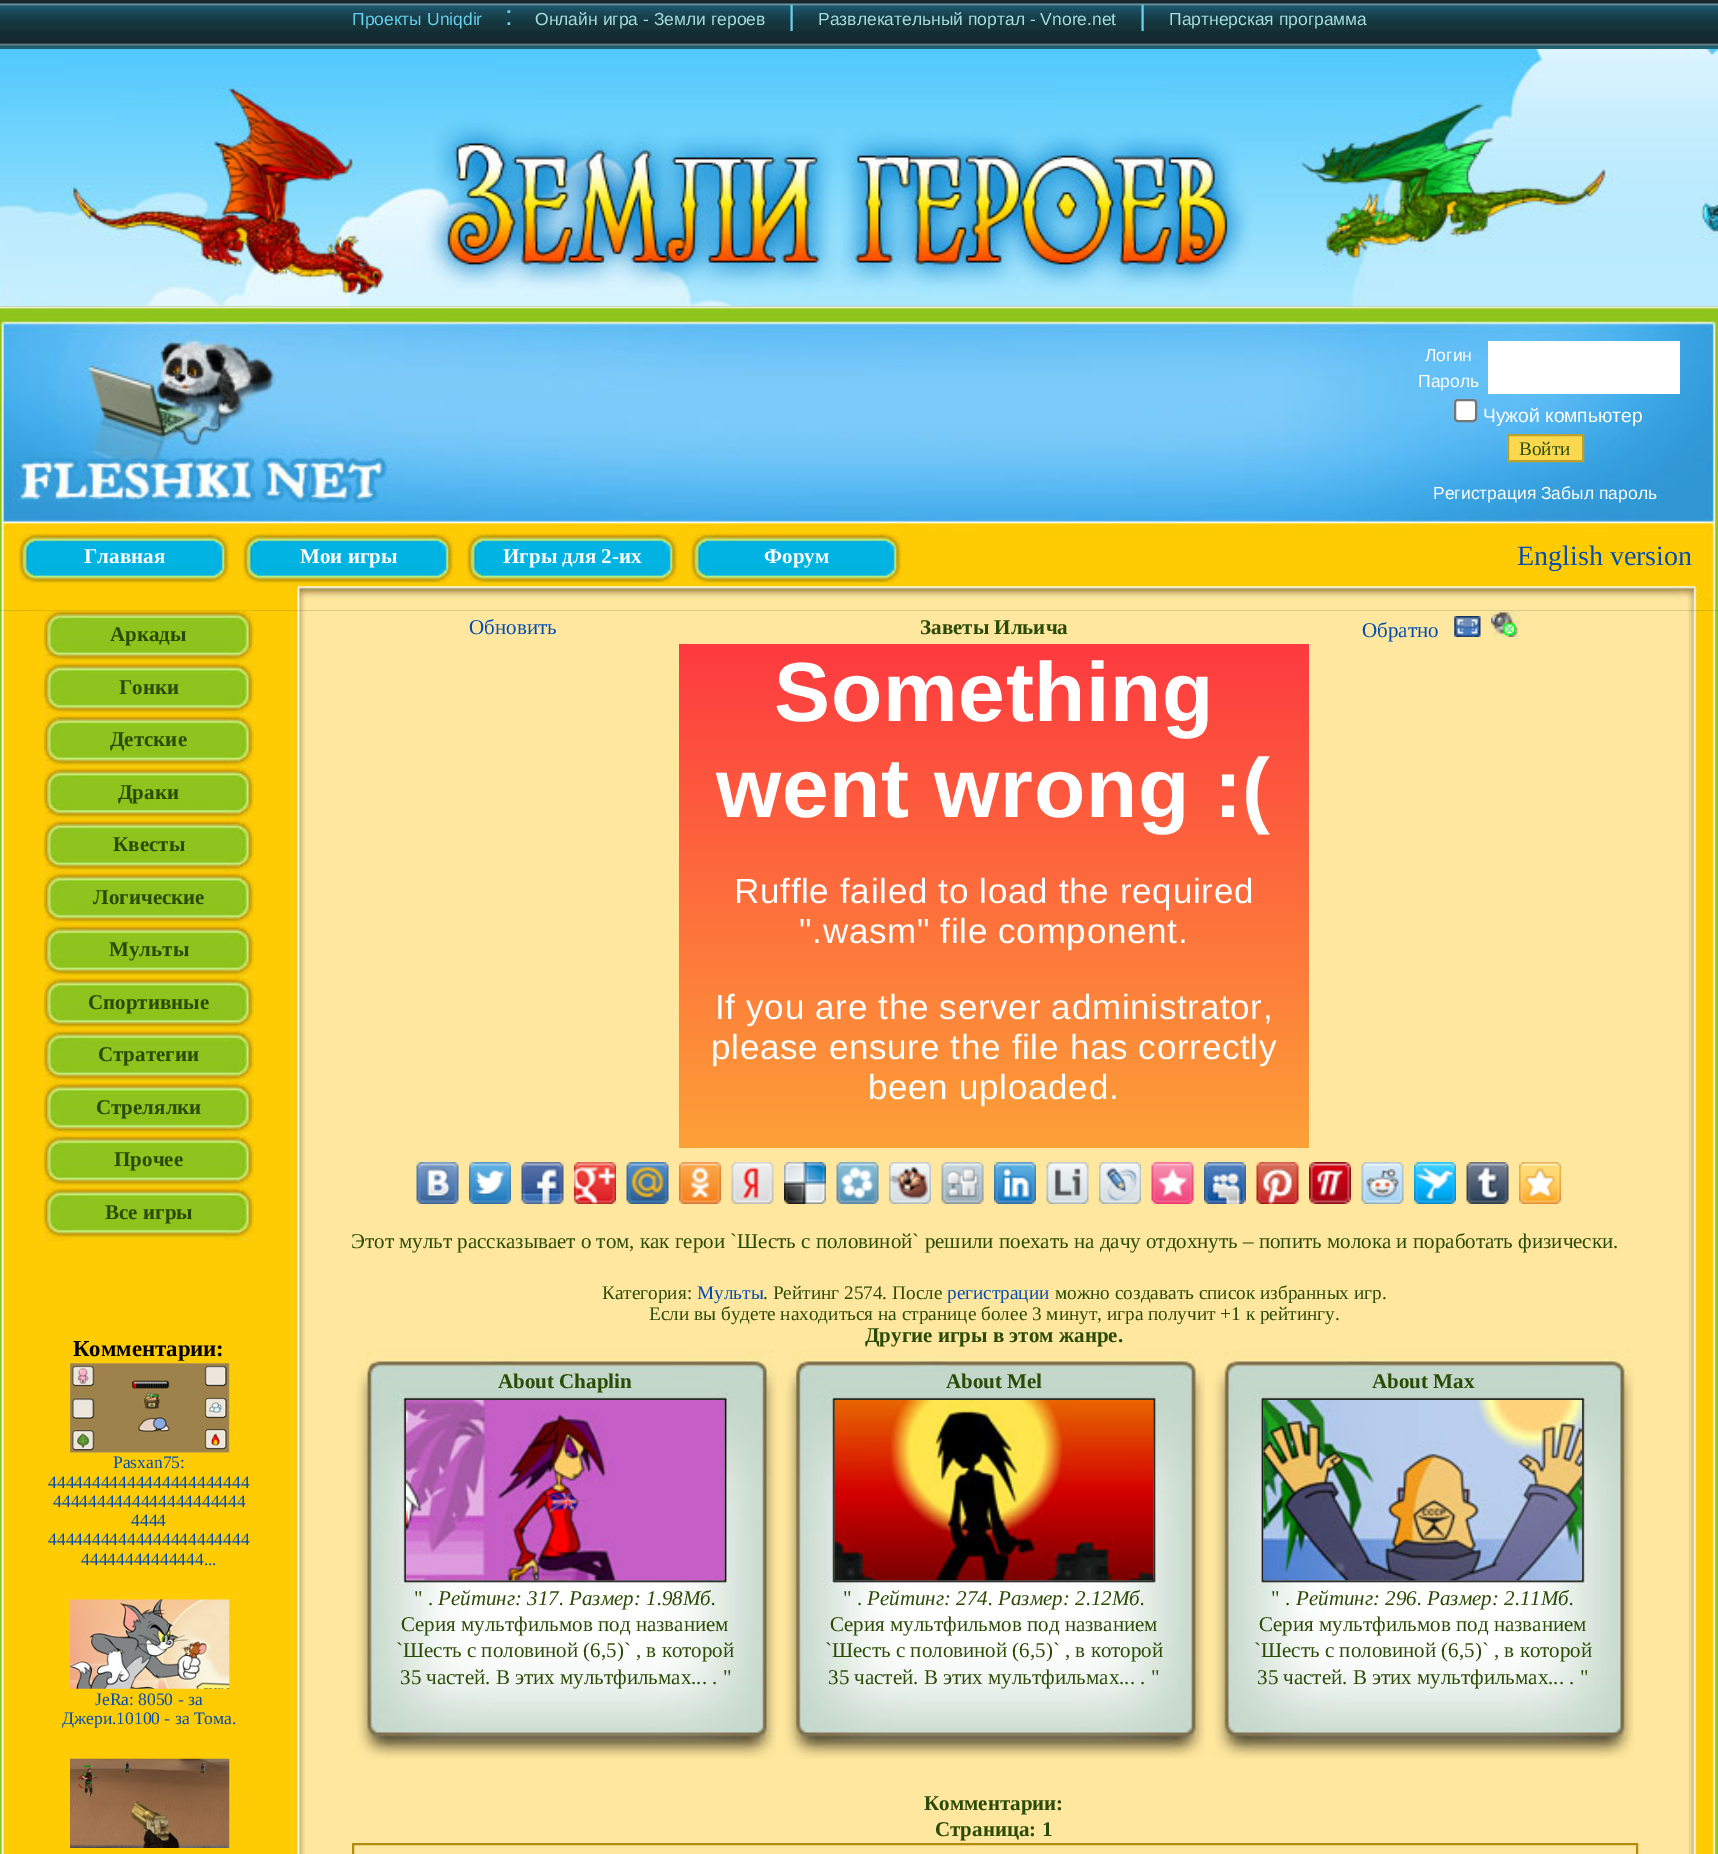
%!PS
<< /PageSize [1718 1854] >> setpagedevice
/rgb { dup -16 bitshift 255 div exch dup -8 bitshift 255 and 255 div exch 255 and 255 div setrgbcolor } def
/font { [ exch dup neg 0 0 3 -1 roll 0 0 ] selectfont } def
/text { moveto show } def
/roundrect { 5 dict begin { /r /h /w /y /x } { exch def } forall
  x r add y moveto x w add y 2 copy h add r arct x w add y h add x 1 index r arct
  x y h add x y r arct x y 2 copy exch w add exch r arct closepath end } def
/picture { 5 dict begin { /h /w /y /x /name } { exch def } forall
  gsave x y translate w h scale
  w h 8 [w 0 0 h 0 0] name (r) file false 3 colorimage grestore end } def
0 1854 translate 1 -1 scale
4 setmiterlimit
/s1 { /LiberationSans-Regular 17.5 font 16#67D0EE rgb } def
/s2 { /LiberationSans-Regular 28 font 16#67D0EE rgb } def
/s3 { /LiberationSans-Regular 17.5 font 16#A6DDDE rgb } def
/s4 { /LiberationSans-Regular 17.5 font 16#FFFFFF rgb } def
/s5 { /LiberationSans-Regular 19.25 font 16#FFFFFF rgb } def
/s6 { /LiberationSerif-Regular 19.25 font 16#2A4B04 rgb } def
/s7 { /LiberationSerif-Bold 21 font 16#FFFFFF rgb } def
/s8 { /LiberationSerif-Regular 28 font 16#034DB3 rgb } def
/s9 { /LiberationSerif-Bold 21 font 16#2A4B04 rgb } def
/s10 { /LiberationSerif-Bold 22.75 font 16#000000 rgb } def
/s11 { /LiberationSerif-Regular 17.5 font 16#034DB3 rgb } def
/s12 { /LiberationSerif-Regular 21 font 16#034DB3 rgb } def
/s13 { /LiberationSerif-Regular 21 font 16#2A4B04 rgb } def
/s14 { /LiberationSerif-Regular 19.25 font 16#034DB3 rgb } def
/s15 { /LiberationSerif-Italic 21 font 16#2A4B04 rgb } def
16#FFFFFF rgb
0 0 1718 1854 rectfill
(pic1.raw) 0 49 1718 562 picture
(pic2.raw) 0 0 1718 49 picture
s1
(Проекты Uniqdir) 352 25 text
s2
(:) 505 25 text
s3
(Онлайн игра - Земли героев) 535 25 text
s2
(|) 788 25 text
s3
(Развлекательный портал - Vnore.net) 818 25 text
s2
(|) 1139 25 text
s3
(Партнерская программа) 1169 25 text
(pic3.raw) 0 306 1718 305 picture
s4
(Логин) 1425 361 text
1488 341 192 53 rectfill
(Пароль) 1418 387 text
1455 400 21 21 3 roundrect gsave fill grestore
16#767676 rgb
2 setlinewidth
stroke
s5
(Чужой компьютер) 1483 422 text
16#FBD84E rgb
1508 435 moveto 1583 435 lineto 1583 461 lineto 1508 461 lineto closepath gsave fill grestore
16#BEA12C rgb
stroke
s6
(Войти) 1519 455 text
s4
(Регистрация Забыл пароль) 1433 499 text
(pic4.raw) 19 533 211 50 picture
s7
(Главная) 84 563 text
(pic5.raw) 243 533 211 50 picture
(Мои игры) 300 563 text
(pic5.raw) 467 533 211 50 picture
(Игры для 2-их) 503 563 text
(pic5.raw) 691 533 211 50 picture
(Форум) 764 563 text
s8
(English version) 1517 565 text
(pic6.raw) 0 610 1718 1244 picture
(pic7.raw) 43 610 211 54 picture
s9
(Аркады) 110 641 text
(pic8.raw) 43 663 211 53 picture
(Гонки) 119 694 text
(pic9.raw) 43 715 211 54 picture
(Детские) 110 746 text
(pic8.raw) 43 768 211 53 picture
(Драки) 118 799 text
(pic9.raw) 43 820 211 54 picture
(Квесты) 113 851 text
(pic8.raw) 43 873 211 53 picture
(Логические) 93 904 text
(pic9.raw) 43 925 211 54 picture
(Мульты) 109 956 text
(pic8.raw) 43 978 211 53 picture
(Спортивные) 88 1009 text
(pic9.raw) 43 1030 211 54 picture
(Стратегии) 98 1061 text
(pic8.raw) 43 1083 211 53 picture
(Стрелялки) 96 1114 text
(pic9.raw) 43 1135 211 54 picture
(Прочее) 114 1166 text
(pic8.raw) 43 1188 211 53 picture
(Все игры) 105 1219 text
s10
(Комментарии:) 73 1356 text
(pic10.raw) 70 1363 160 90 picture
s11
(Pasxan75:) 113 1468 text
(44444444444444444444444) 48 1488 text
(4444444444444444444444) 53 1507 text
(4444) 131 1526 text
(44444444444444444444444) 48 1545 text
(44444444444444...) 81 1565 text
(pic11.raw) 70 1599 160 90 picture
(JeRa: 8050 - за) 95 1705 text
(Джери.10100 - за Тома.) 62 1724 text
(pic12.raw) 70 1758 160 90 picture
s12
(Обновить) 469 634 text
s9
(Заветы Ильича) 920 634 text
s12
(Обратно) 1362 637 text
(pic13.raw) 1454 616 27 21 picture
(pic14.raw) 1491 611 28 26 picture
gsave 679 644 moveto 1309 644 lineto 1309 1148 lineto 679 1148 lineto closepath clip newpath
<< /ShadingType 2 /ColorSpace /DeviceRGB /Coords [994 644 994 1148] /Extend [true true] /Function << /FunctionType 2 /Domain [0 1] /C0 [0.992 0.227 0.251] /C1 [0.992 0.631 0.22] /N 1 >> >> shfill grestore
/LiberationSans-Bold 84 font
16#FFFFFF rgb
774 721 moveto 0.7 0 (Something) ashow
716 817 moveto 0.7 0 (went wrong :\() ashow
/LiberationSans-Regular 35 font
734 903 moveto 0.7 0 (Ruffle failed to load the required) ashow
799 943 moveto 0.7 0 (".wasm" file component.) ashow
715 1019 moveto 0.7 0 (If you are the server administrator,) ashow
711 1059 moveto 0.7 0 (please ensure the file has correctly) ashow
868 1099 moveto 0.7 0 (been uploaded.) ashow
(pic15.raw) 416 1162 43 42 picture
(pic16.raw) 469 1162 42 42 picture
(pic17.raw) 521 1162 43 42 picture
(pic18.raw) 574 1162 42 42 picture
(pic19.raw) 626 1162 43 42 picture
(pic20.raw) 679 1162 42 42 picture
(pic21.raw) 731 1162 43 42 picture
(pic22.raw) 784 1162 42 42 picture
(pic23.raw) 836 1162 43 42 picture
(pic24.raw) 889 1162 42 42 picture
(pic25.raw) 941 1162 43 42 picture
(pic26.raw) 994 1162 42 42 picture
(pic27.raw) 1046 1162 43 42 picture
(pic28.raw) 1099 1162 42 42 picture
(pic29.raw) 1151 1162 43 42 picture
(pic30.raw) 1204 1162 42 42 picture
(pic31.raw) 1256 1162 43 42 picture
(pic32.raw) 1309 1162 42 42 picture
(pic33.raw) 1361 1162 43 42 picture
(pic34.raw) 1414 1162 42 42 picture
(pic35.raw) 1466 1162 43 42 picture
(pic36.raw) 1519 1162 42 42 picture
s13
(Этот мульт рассказывает о том, как герои `Шесть с половиной` решили поехать на дачу отдохнуть – попить молока и поработать физически.) 351 1248 text
s6
(Категория:) 602 1299 text
s14
(Мульты) 697 1299 text
s6
(. Рейтинг 2574. После) 763 1299 text
s14
(регистрации) 947 1299 text
s6
(можно создавать список избранных игр.) 1055 1299 text
(Если вы будете находиться на странице более 3 минут, игра получит +1 к рейтингу.) 649 1320 text
s9
(Другие игры в этом жанре.) 865 1342 text
(pic37.raw) 352 1350 425 409 picture
(About Chaplin) 498 1388 text
(pic38.raw) 406 1400 319 181 picture
s13
(" .) 414 1605 text
s15
(Рейтинг: 317. Размер: 1.98Мб.) 438 1605 text
s13
(Серия мультфильмов под названием) 401 1631 text
(`Шесть с половиной \(6,5\)` , в которой) 396 1657 text
(35 частей. В этих мультфильмах... . ") 400 1684 text
(pic39.raw) 781 1350 424 409 picture
s9
(About Mel) 946 1388 text
(pic40.raw) 834 1400 320 181 picture
s13
(" .) 843 1605 text
s15
(Рейтинг: 274. Размер: 2.12Мб.) 867 1605 text
s13
(Серия мультфильмов под названием) 830 1631 text
(`Шесть с половиной \(6,5\)` , в которой) 825 1657 text
(35 частей. В этих мультфильмах... . ") 828 1684 text
(pic41.raw) 1210 1350 424 409 picture
s9
(About Max) 1372 1388 text
(pic42.raw) 1263 1400 319 181 picture
s13
(" .) 1271 1605 text
s15
(Рейтинг: 296. Размер: 2.11Мб.) 1296 1605 text
s13
(Серия мультфильмов под названием) 1259 1631 text
(`Шесть с половиной \(6,5\)` , в которой) 1254 1657 text
(35 частей. В этих мультфильмах... . ") 1257 1684 text
s9
(Комментарии:) 924 1810 text
(Cтраница: 1) 935 1836 text
16#B38B10 rgb
353 1844 1284 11 rectstroke
showpage
